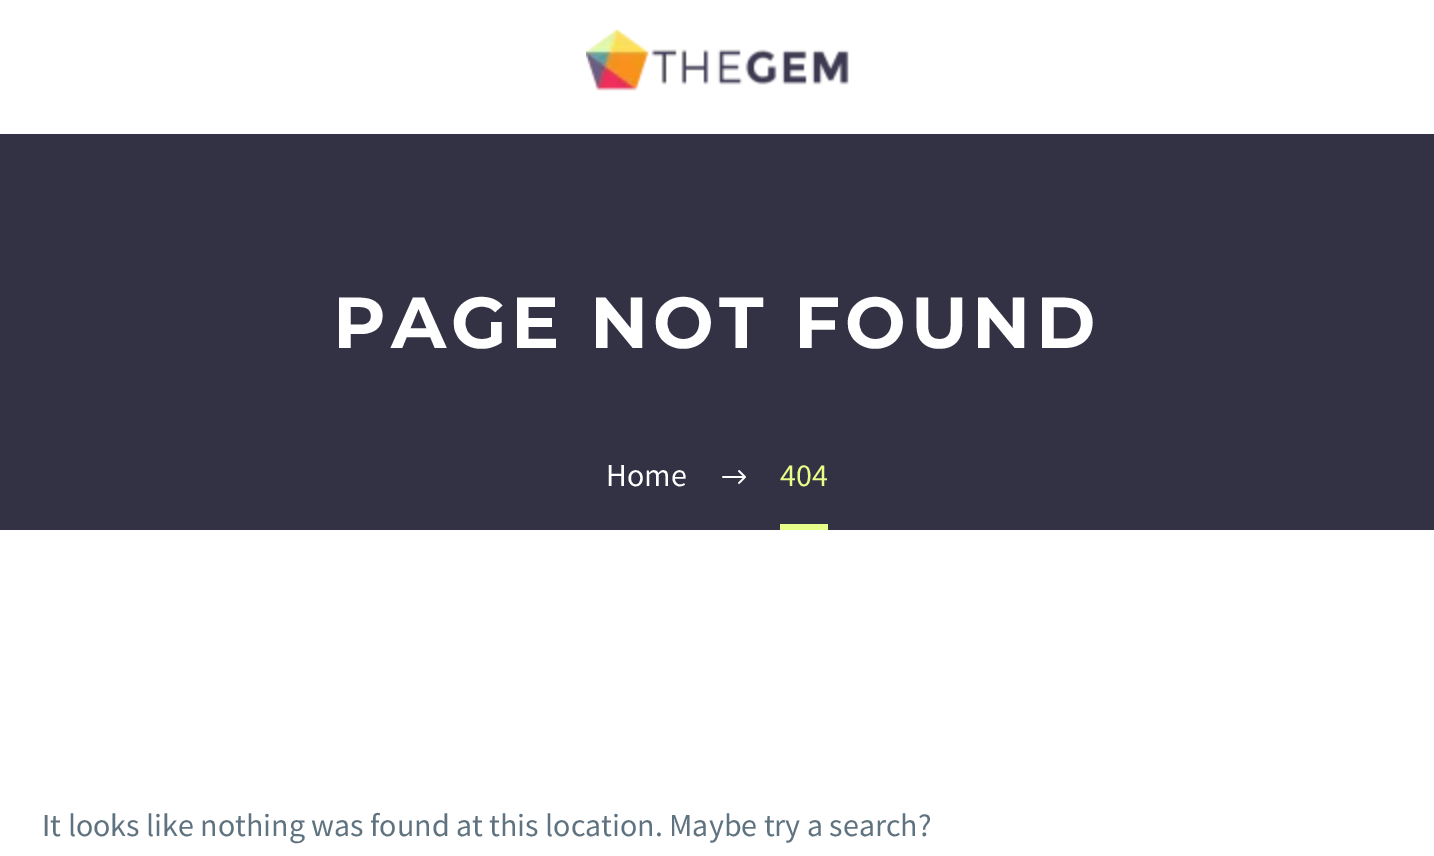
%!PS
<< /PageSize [1434 856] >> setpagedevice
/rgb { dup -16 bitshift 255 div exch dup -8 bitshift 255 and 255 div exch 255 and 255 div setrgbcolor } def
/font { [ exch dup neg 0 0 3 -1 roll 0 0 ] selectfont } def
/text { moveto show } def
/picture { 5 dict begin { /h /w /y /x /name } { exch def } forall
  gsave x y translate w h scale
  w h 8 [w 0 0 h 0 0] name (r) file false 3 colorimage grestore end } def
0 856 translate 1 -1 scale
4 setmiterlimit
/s1 { /SourceSansPro-Regular 32 font 16#FFFFFF rgb } def
/s2 { /SourceSansPro-Regular 32 font 16#E7FF89 rgb } def
/s3 { /SourceSansPro-Regular 32 font 16#5F727F rgb } def
16#FFFFFF rgb
0 0 1434 856 rectfill
(pic1.raw) 586 30 263 61 picture
16#333144 rgb
0 134 1434 396 rectfill
/Montserrat-Bold 72 font
16#FFFFFF rgb
333 348 moveto 5 0 (PAGE NOT FOUND) ashow
s1
(Home) 606 486 text
(pic2.raw) 722 470 24 14 picture
16#E7FF89 rgb
780 524 48 6 rectfill
(404) 780 486 text
s3
(It looks like nothing was found at this location. Maybe try a search?) 42 836 text
showpage
